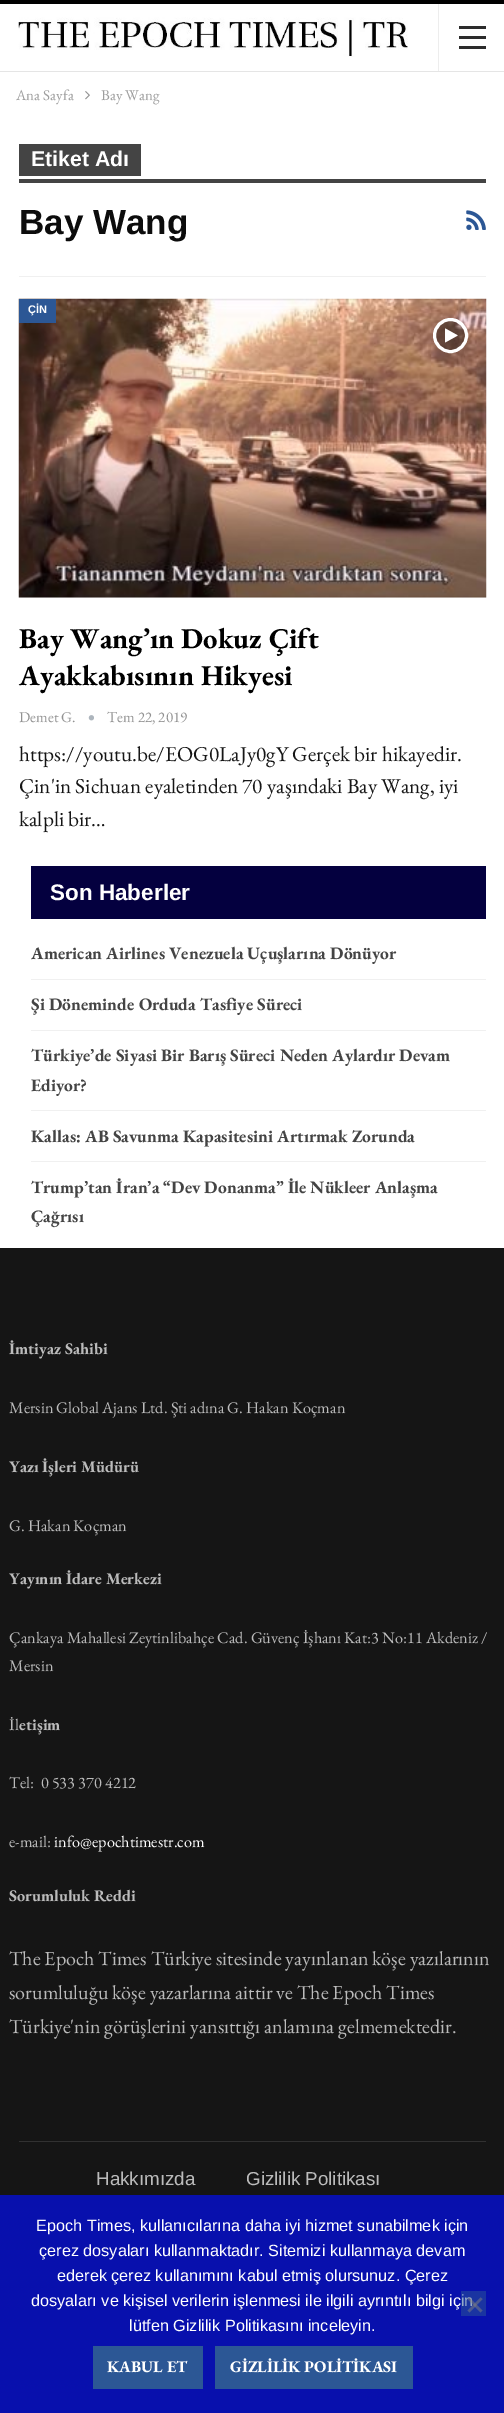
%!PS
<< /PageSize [504 2413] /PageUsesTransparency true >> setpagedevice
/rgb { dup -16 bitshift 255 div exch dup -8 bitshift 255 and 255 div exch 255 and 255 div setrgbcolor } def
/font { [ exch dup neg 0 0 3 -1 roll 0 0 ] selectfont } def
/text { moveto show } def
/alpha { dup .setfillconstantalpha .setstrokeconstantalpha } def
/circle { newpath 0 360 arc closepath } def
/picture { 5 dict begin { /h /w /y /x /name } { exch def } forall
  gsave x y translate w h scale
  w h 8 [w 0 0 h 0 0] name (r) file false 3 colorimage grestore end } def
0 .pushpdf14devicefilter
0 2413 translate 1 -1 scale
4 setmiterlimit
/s1 { /EBGaramond-Regular 15 font 16#9E9E9E rgb } def
/s2 { /LiberationSans-Bold 21.25 font 16#FFFFFF rgb } def
/s3 { /LiberationSans-Bold 35 font 16#0C0C0C rgb } def
/s4 { /LiberationSans-Bold 11 font 16#FFFFFF rgb } def
/s5 { /EBGaramond-Bold 28.75 font 16#000000 rgb } def
/s6 { /EBGaramond-Regular 15 font 16#929292 rgb } def
/s7 { /EBGaramond-Regular 21.25 font 16#161616 rgb } def
/s8 { /LiberationSans-Bold 22.5 font 16#FFFFFF rgb } def
/s9 { /EBGaramond-Bold 17.5 font 16#444444 rgb } def
/s10 { /EBGaramond-Bold 16.25 font 16#BBBBBB rgb } def
/s11 { /EBGaramond-Regular 16.25 font 16#BBBBBB rgb } def
/s12 { /EBGaramond-Regular 16.25 font 16#FFFFFF rgb } def
/s13 { /EBGaramond-Regular 20 font 16#BBBBBB rgb } def
/s14 { /LiberationSans-Regular 18.75 font 16#BBBBBB rgb } def
/s15 { /LiberationSans-Regular 16.25 font 16#FFFFFF rgb } def
/s16 { /EBGaramond-Bold 16.25 font 16#FFFFFF rgb } def
16#000000 rgb
0 0 504 2413 rectfill
16#FFFFFF rgb
0 4 504 1244 rectfill
16#E5E5E5 rgb
0 71 504 1 rectfill
(pic1.raw) 18 17 390 40 picture
16#EDEDED rgb
438 4 1 67 rectfill
16#2C2C2C rgb
459 36 27 3 rectfill
459 26 27 3 rectfill
459 46 27 3 rectfill
s1
(Ana Sayfa) 16 100 text
(pic2.raw) 85 91 5 9 picture
(Bay Wang) 101 100 text
16#F0F0F0 rgb
19 276 467 1 rectfill
16#444444 rgb
19 144 122 32 rectfill
s2
(Etiket Adı) 31 166 text
16#444444 rgb
19 179 467 4 rectfill
s3
(Bay Wang) 19 234 text
(pic3.raw) 466 210 20 20 picture
16#F5F5F5 rgb
19 597 467 1 rectfill
(pic4.raw) 18 298 469 300 picture
16#2C5795 rgb
19 299 37 24 rectfill
s4
(ÇİN) 28 313 text
0.3 alpha
16#000000 rgb
450.5 335.5 16 circle fill
1 alpha
16#FFFFFF rgb
3 setlinewidth
450.5 335.5 16 circle stroke
(pic5.raw) 445 328 13 15 picture
s5
(Bay Wang’ın Dokuz Çift) 19 648 text
(Ayakkabısının Hikyesi) 19 685 text
s6
(Demet G.) 19 722 text
(pic6.raw) 88 715 6 6 picture
(Tem 22, 2019) 107 722 text
s7
(https://youtu.be/EOG0LaJy0gY Gerçek bir hikayedir.) 19 761 text
(Çin'in Sichuan eyaletinden 70 yaşındaki Bay Wang, iyi) 19 793 text
(kalpli bir…) 19 826 text
16#04003F rgb
31 866 455 53 rectfill
s8
(Son Haberler) 50 900 text
16#F0F0F0 rgb
31 979 455 1 rectfill
s9
(American Airlines Venezuela Uçuşlarına Dönüyor) 31 959 text
16#F0F0F0 rgb
31 1030 455 1 rectfill
s9
(Şi Döneminde Orduda Tasfiye Süreci) 31 1010 text
16#F0F0F0 rgb
31 1110 455 1 rectfill
s9
(Türkiye’de Siyasi Bir Barış Süreci Neden Aylardır Devam) 31 1061 text
(Ediyor?) 31 1091 text
16#F0F0F0 rgb
31 1161 455 1 rectfill
s9
(Kallas: AB Savunma Kapasitesini Artırmak Zorunda) 31 1142 text
(Trump’tan İran’a “Dev Donanma” İle Nükleer Anlaşma) 31 1193 text
(Çağrısı) 31 1222 text
16#151515 rgb
0 1248 504 947 rectfill
s10
(İmtiyaz Sahibi) 9 1354 text
s11
(Mersin Global Ajans Ltd. Şti adına G. Hakan Koçman) 9 1413 text
s10
(Yazı İşleri Müdürü) 9 1472 text
s11
(G. Hakan Koçman) 9 1531 text
s10
(Yayının İdare Merkezi) 9 1584 text
s11
(Çankaya Mahallesi Zeytinlibahçe Cad. Güvenç İşhanı Kat:3 No:11 Akdeniz /) 9 1643 text
(Mersin) 9 1671 text
(İl) 9 1730 text
s10
(etişim) 19 1730 text
s11
(Tel:  0 533 370 4212) 9 1788 text
(e-mail:) 9 1847 text
s12
(info@epochtimestr.com) 54 1847 text
s10
(Sorumluluk Reddi) 9 1901 text
s13
(The Epoch Times Türkiye sitesinde yayınlanan köşe yazılarının) 9 1965 text
(sorumluluğu köşe yazarlarına aittir ve The Epoch Times) 9 1999 text
(Türkiye'nin görüşlerini yansıttığı anlamına gelmemektedir.) 9 2033 text
16#313131 rgb
19 2141 467 1 rectfill
s14
(Hakkımızda) 96 2185 text
(Gizlilik Politikası) 246 2185 text
16#0810AD rgb
0 2195 504 218 rectfill
s15
(Epoch Times, kullanıcılarına daha iyi hizmet sunabilmek için) 36 2231 text
(çerez dosyaları kullanmaktadır. Sitemizi kullanmaya devam) 39 2256 text
(ederek çerez kullanımını kabul etmiş olursunuz. Çerez) 57 2281 text
(dosyaları ve kişisel verilerin işlenmesi ile ilgili ayrıntılı bilgi için) 31 2306 text
(lütfen Gizlilik Politikasını inceleyin.) 129 2331 text
0.5 alpha
16#2C5795 rgb
461 2291 25 25 rectfill
16#808080 rgb
480.5 2297.5 moveto 482.5 2299 lineto 469.5 2312.5 lineto 467.5 2310.5 lineto closepath fill
467.5 2299 moveto 469.5 2297.5 lineto 482.5 2310.5 lineto 480.5 2312.5 lineto closepath fill
1 alpha
16#2C5795 rgb
93 2346 110 43 rectfill
s16
(KABUL ET) 107 2372 text
16#2C5795 rgb
215 2346 198 43 rectfill
s16
(GİZLİLİK POLİTİKASI) 230 2372 text
.poppdf14devicefilter showpage
